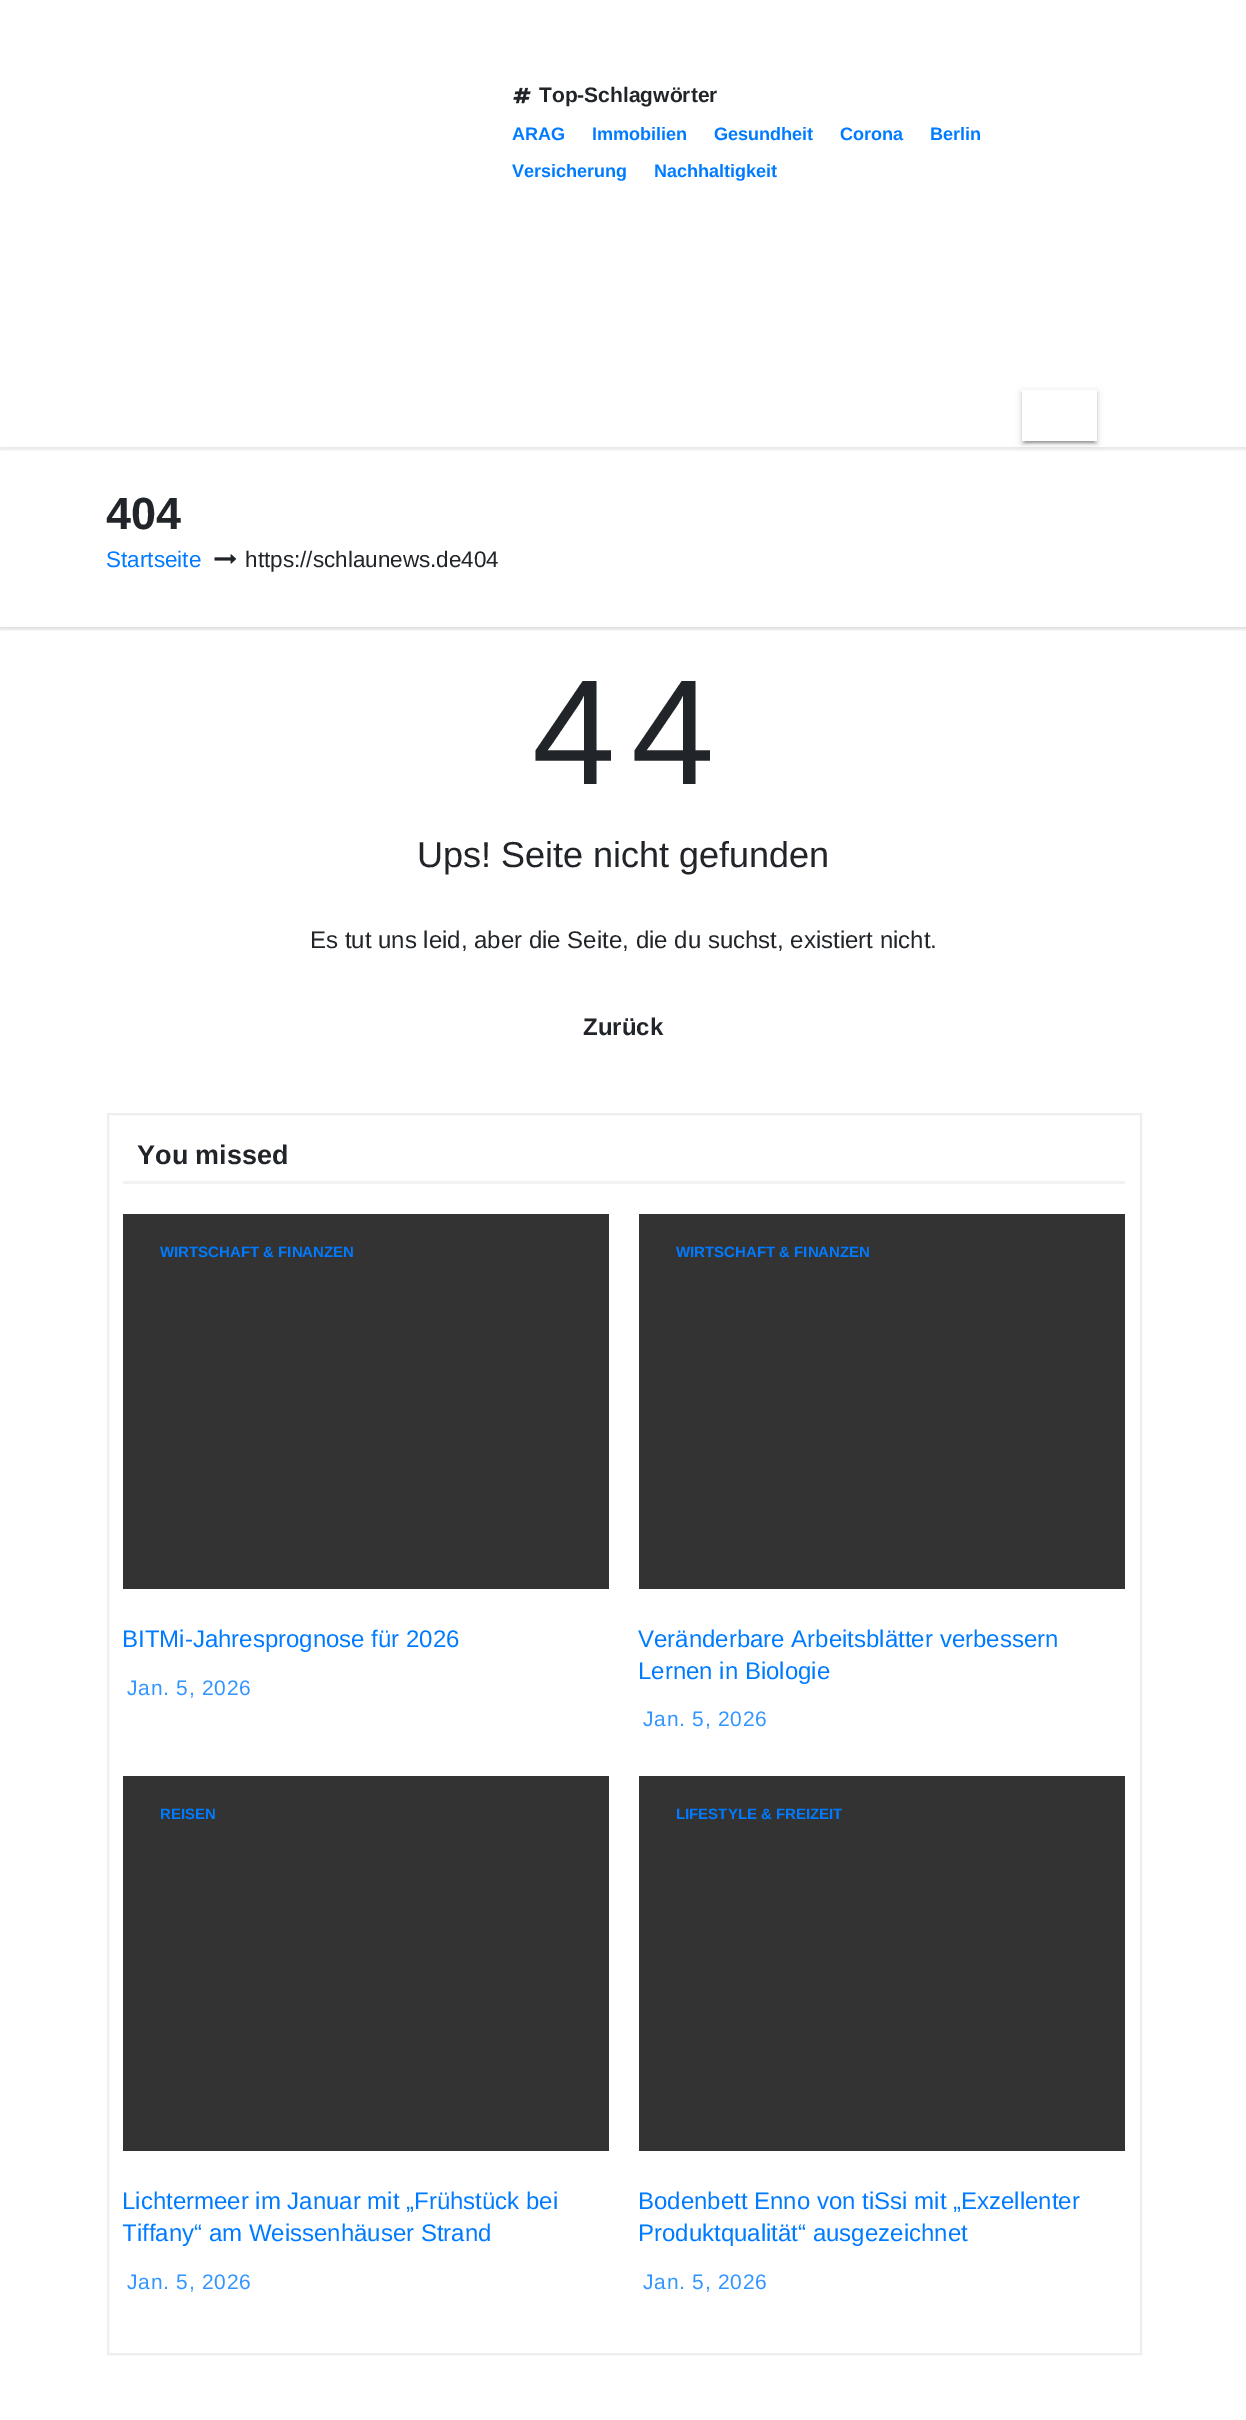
%!PS
<< /PageSize [1246 2420] /PageUsesTransparency true >> setpagedevice
/rgb { dup -16 bitshift 255 div exch dup -8 bitshift 255 and 255 div exch 255 and 255 div setrgbcolor } def
/font { [ exch dup neg 0 0 3 -1 roll 0 0 ] selectfont } def
/text { moveto show } def
/alpha { dup .setfillconstantalpha .setstrokeconstantalpha } def
/roundrect { 5 dict begin { /r /h /w /y /x } { exch def } forall
  x r add y moveto x w add y 2 copy h add r arct x w add y h add x 1 index r arct
  x y h add x y r arct x y 2 copy exch w add exch r arct closepath end } def
/shadow { 12 dict begin { /a /b /q /h /w /y /x } { exch def } forall gsave /was 0 def
  9 -2 -9 { dup b mul 4 div /e exch def 1 sub .425 mul 2.718 exch exp 1 add a .99 .min exch div /now exch def
    1 1 now sub 1 was sub div sub alpha /was now def
    w h .min e 2 mul add 0 gt { x e sub y e sub w e 2 mul add h e 2 mul add
      q e add b .6 mul add w h .min 2 div e add .min 0 .max roundrect fill } if } for grestore end } def
/picture { 5 dict begin { /h /w /y /x /name } { exch def } forall
  gsave x y translate w h scale
  w h 8 [w 0 0 h 0 0] name (r) file false 3 colorimage grestore end } def
0 .pushpdf14devicefilter
0 2420 translate 1 -1 scale
4 setmiterlimit
/s1 { /LiberationSans-Bold 21 font 16#212529 rgb } def
/s2 { /LiberationSans-Bold 18 font 16#007BFF rgb } def
/s3 { /LiberationSans-Bold 45 font 16#212529 rgb } def
/s4 { /LiberationSans-Regular 22.5 font 16#007BFF rgb } def
/s5 { /LiberationSans-Regular 22.5 font 16#212529 rgb } def
/s6 { /LiberationSans-Regular 150 font 16#212529 rgb } def
/s7 { /LiberationSans-Regular 36 font 16#212529 rgb } def
/s8 { /LiberationSans-Regular 24 font 16#212529 rgb } def
/s9 { /LiberationSans-Bold 24 font 16#212529 rgb } def
/s10 { /LiberationSans-Bold 27 font 16#212529 rgb } def
/s11 { /LiberationSans-Bold 15 font 16#007BFF rgb } def
/s12 { /LiberationSans-Regular 24 font 16#007BFF rgb } def
16#FFFFFF rgb
0 0 1246 2420 rectfill
(pic1.raw) 513 87 18 17 picture
s1
(Top-Schlagwörter) 539 102 text
s2
(ARAG) 512 140 text
(Immobilien) 592 140 text
(Gesundheit) 714 140 text
(Corona) 840 140 text
(Berlin) 930 140 text
(Versicherung) 512 177 text
(Nachhaltigkeit) 654 177 text
gsave
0 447 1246 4 rectclip
16#000000 rgb
0 387 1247 63 0 1.5 0.08 shadow
grestore
gsave
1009 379 moveto 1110 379 lineto 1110 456 lineto 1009 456 lineto closepath 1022 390 moveto 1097 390 lineto 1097 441 lineto 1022 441 lineto closepath eoclip newpath
16#000000 rgb
1022 392 75 51 0 4 0.12 shadow
grestore
gsave
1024 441 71 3 rectclip
16#000000 rgb
1025 398 69 45 0 1 0.2 shadow
grestore
gsave
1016 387 moveto 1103 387 lineto 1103 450 lineto 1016 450 lineto closepath 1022 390 moveto 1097 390 lineto 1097 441 lineto 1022 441 lineto closepath eoclip newpath
16#000000 rgb
1022 393 75 51 0 1.5 0.14 shadow
grestore
gsave
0 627 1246 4 rectclip
16#000000 rgb
0 449 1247 180 0 2 0.15 shadow
grestore
s3
(404) 106 529 text
s4
(Startseite) 106 567 text
(pic2.raw) 214 554 23 10 picture
s5
(https://schlaunews.de404) 245 567 text
s6
(4) 532 784 text
(4) 631 784 text
s7
(Ups! Seite nicht gefunden) 417 867 text
s8
(Es tut uns leid, aber die Seite, die du suchst, existiert nicht.) 310 948 text
s9
(Zurück) 583 1035 text
16#EEEEEE rgb
2 setlinewidth
108 1114 1033 1240 rectstroke
16#F2F2F2 rgb
123 1181 1002 3 rectfill
s10
(You missed) 137 1164 text
16#333333 rgb
123 1214 486 375 rectfill
s11
(WIRTSCHAFT & FINANZEN) 160 1257 text
s12
(BITMi-Jahresprognose für 2026) 122 1647 text
/LiberationSans-Regular 21 font
16#3395FF rgb
127 1695 moveto 0.75 0 (Jan. 5, 2026) ashow
16#333333 rgb
639 1214 486 375 rectfill
s11
(WIRTSCHAFT & FINANZEN) 676 1257 text
s12
(Veränderbare Arbeitsblätter verbessern) 638 1647 text
(Lernen in Biologie) 638 1679 text
/LiberationSans-Regular 21 font
16#3395FF rgb
643 1726 moveto 0.75 0 (Jan. 5, 2026) ashow
16#333333 rgb
123 1776 486 375 rectfill
s11
(REISEN) 160 1819 text
s12
(Lichtermeer im Januar mit „Frühstück bei) 122 2209 text
gsave
123 2186 486 63 rectclip
(Tiffany“ am Weissenhäuser Strand) 122 2241 text
grestore
/LiberationSans-Regular 21 font
16#3395FF rgb
127 2289 moveto 0.75 0 (Jan. 5, 2026) ashow
16#333333 rgb
639 1776 486 375 rectfill
s11
(LIFESTYLE & FREIZEIT) 676 1819 text
s12
(Bodenbett Enno von tiSsi mit „Exzellenter) 638 2209 text
(Produktqualität“ ausgezeichnet) 638 2241 text
/LiberationSans-Regular 21 font
16#3395FF rgb
643 2289 moveto 0.75 0 (Jan. 5, 2026) ashow
.poppdf14devicefilter showpage
